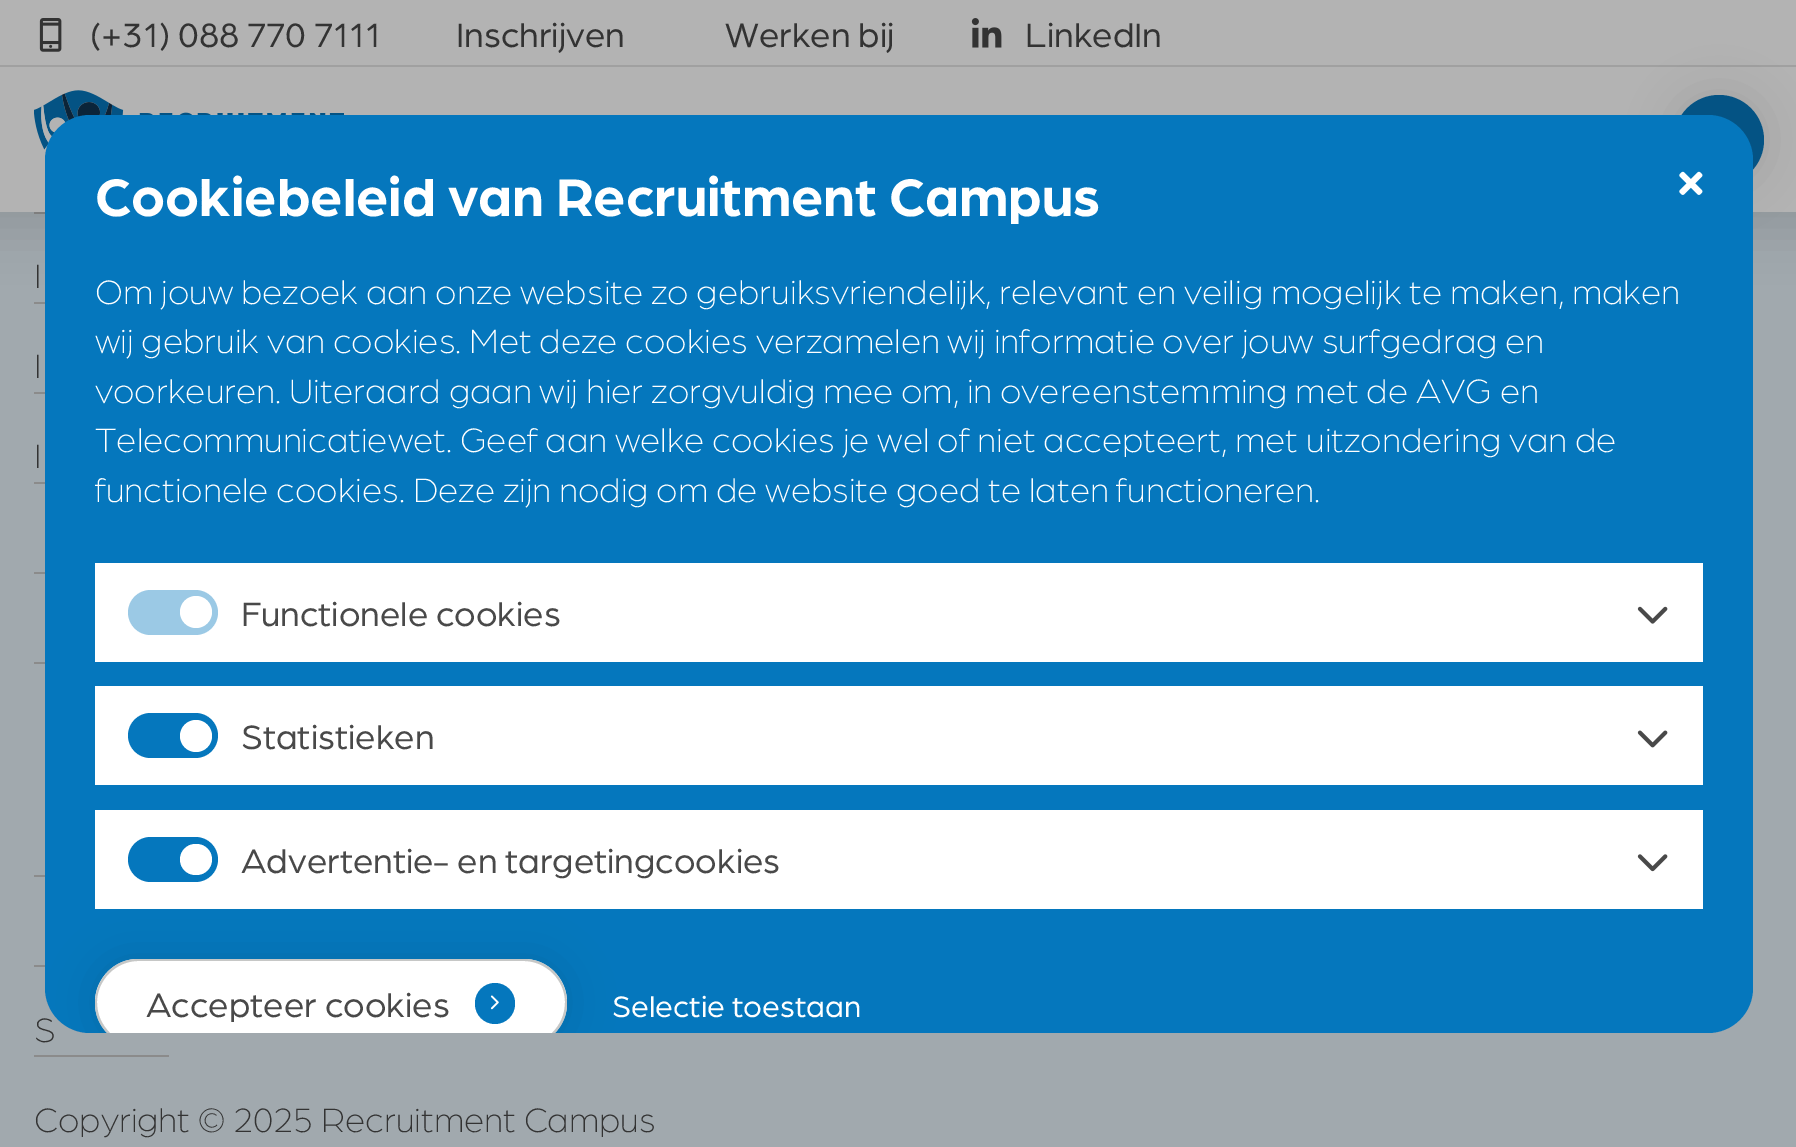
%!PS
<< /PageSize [1796 1147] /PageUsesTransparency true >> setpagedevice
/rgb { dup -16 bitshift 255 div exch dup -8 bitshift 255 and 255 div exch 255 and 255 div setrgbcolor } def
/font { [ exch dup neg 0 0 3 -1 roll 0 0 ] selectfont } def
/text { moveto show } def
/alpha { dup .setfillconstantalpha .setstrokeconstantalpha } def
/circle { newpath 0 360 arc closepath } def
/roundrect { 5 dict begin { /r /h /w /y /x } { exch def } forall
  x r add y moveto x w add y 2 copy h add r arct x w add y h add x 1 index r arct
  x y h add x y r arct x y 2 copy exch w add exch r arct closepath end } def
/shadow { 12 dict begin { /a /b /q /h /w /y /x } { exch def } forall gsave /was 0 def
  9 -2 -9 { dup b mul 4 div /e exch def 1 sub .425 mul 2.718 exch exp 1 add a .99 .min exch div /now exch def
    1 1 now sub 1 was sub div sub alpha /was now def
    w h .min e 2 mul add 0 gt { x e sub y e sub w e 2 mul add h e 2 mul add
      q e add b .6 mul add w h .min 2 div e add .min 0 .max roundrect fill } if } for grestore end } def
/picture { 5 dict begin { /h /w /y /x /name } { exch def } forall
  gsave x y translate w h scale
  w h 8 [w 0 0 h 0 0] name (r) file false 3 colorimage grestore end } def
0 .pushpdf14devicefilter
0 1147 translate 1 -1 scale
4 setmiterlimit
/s1 { /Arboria-Regular 36 font 16#333333 rgb } def
/s2 { /Arboria-Light 36 font 16#333333 rgb } def
/s3 { /Arboria-Bold 56.25 font 16#FFFFFF rgb } def
/s4 { /Arboria-Light 36 font 16#FFFFFF rgb } def
/s5 { /Arboria-Regular 36 font 16#494949 rgb } def
/s6 { /Arboria-Regular 31.5 font 16#FFFFFF rgb } def
16#A1A9AE rgb
0 0 1796 1147 rectfill
16#8B8B8B rgb
34 212 11 2 rectfill
34 302 11 2 rectfill
16#000000 rgb
-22 -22 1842 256 0 22.5 0.1 shadow
16#B3B3B3 rgb
0 0 1796 212 rectfill
16#A0A0A0 rgb
0 65 1796 2 rectfill
(pic1.raw) 39 18 23 34 picture
s1
(\(+31\) 088 770 7111) 90 47 text
(Inschrijven) 456 47 text
(Werken bij) 725 47 text
(pic2.raw) 971 18 31 30 picture
(LinkedIn) 1025 47 text
(pic3.raw) 34 90 310 63 picture
16#000000 rgb
1674 95 90 90 45 22.5 0.1 shadow
16#045384 rgb
1719 140 45 circle fill
s2
(I) 34 288 text
(I) 34 378 text
16#8B8B8B rgb
34 392 11 2 rectfill
s2
(I) 34 468 text
16#8B8B8B rgb
34 482 11 2 rectfill
34 572 11 2 rectfill
34 662 11 2 rectfill
34 875 11 2 rectfill
34 965 11 2 rectfill
s2
(S) 34 1042 text
16#8B8B8B rgb
34 1055 135 2 rectfill
s2
(Copyright © 2025 Recruitment Campus) 34 1132 text
16#0577BD rgb
45 115 1708 918 45 roundrect fill
s3
(Cookiebeleid van Recruitment Campus) 95 216 text
s4
(Om jouw bezoek aan onze website zo gebruiksvriendelijk, relevant en veilig mogelijk te maken, maken) 95 304 text
(wij gebruik van cookies. Met deze cookies verzamelen wij informatie over jouw surfgedrag en) 95 353 text
(voorkeuren. Uiteraard gaan wij hier zorgvuldig mee om, in overeenstemming met de AVG en) 95 403 text
(Telecommunicatiewet. Geef aan welke cookies je wel of niet accepteert, met uitzondering van de) 95 452 text
(functionele cookies. Deze zijn nodig om de website goed te laten functioneren.) 95 502 text
95 563 1608 99 rectfill
16#9BC9E5 rgb
128 590 90 45 22.5 roundrect fill
16#FFFFFF rgb
196 612 16 circle fill
s5
(Functionele cookies) 241 626 text
(pic4.raw) 1637 606 31 18 picture
16#FFFFFF rgb
95 686 1608 99 rectfill
16#0577BD rgb
128 713 90 45 22.5 roundrect fill
16#FFFFFF rgb
196 736 16 circle fill
s5
(Statistieken) 241 749 text
(pic5.raw) 1637 730 31 18 picture
16#FFFFFF rgb
95 810 1608 99 rectfill
16#0577BD rgb
128 837 90 45 22.5 roundrect fill
16#FFFFFF rgb
180 844 32 31 15.5 roundrect fill
s5
(Advertentie- en targetingcookies) 241 873 text
(pic6.raw) 1637 854 31 18 picture
gsave
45 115 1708 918 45 roundrect clip newpath
16#000000 rgb
95 959 472 87 43.5 22.5 0.1 shadow
grestore
gsave
45 115 1708 918 45 roundrect clip newpath
16#FFFFFF rgb
95 959 472 87 43.5 roundrect fill
grestore
16#C6C7C6 rgb
138 959 moveto 100 959 81 1006 107 1033 curveto 110 1033 lineto 102 1025 97 1015 97 1002 curveto 97 980 116 961 138 961 curveto 524 961 lineto 546 961 565 980 565 1002 curveto 565 1015 560 1025 552 1033 curveto 555 1033 lineto 581 1006 562 959 524 959 curveto closepath fill
s5
(Accepteer cookies) 146 1017 text
16#0577BD rgb
475 983 40 41 20 roundrect fill
(pic7.raw) 490 995 9 15 picture
s6
(Selectie toestaan) 612 1017 text
(pic8.raw) 1679 171 24 24 picture
.poppdf14devicefilter showpage
